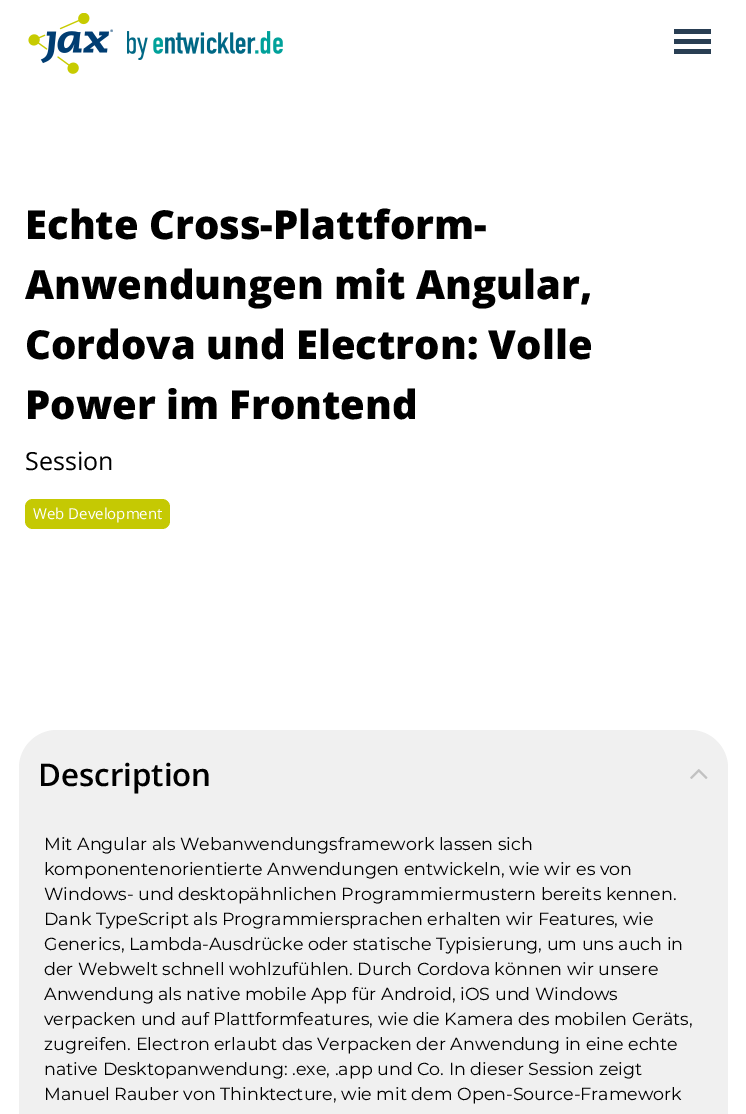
%!PS
<< /PageSize [746 1114] >> setpagedevice
/rgb { dup -16 bitshift 255 div exch dup -8 bitshift 255 and 255 div exch 255 and 255 div setrgbcolor } def
/font { [ exch dup neg 0 0 3 -1 roll 0 0 ] selectfont } def
/text { moveto show } def
/roundrect { 5 dict begin { /r /h /w /y /x } { exch def } forall
  x r add y moveto x w add y 2 copy h add r arct x w add y h add x 1 index r arct
  x y h add x y r arct x y 2 copy exch w add exch r arct closepath end } def
/picture { 5 dict begin { /h /w /y /x /name } { exch def } forall
  gsave x y translate w h scale
  w h 8 [w 0 0 h 0 0] name (r) file false 3 colorimage grestore end } def
0 1114 translate 1 -1 scale
4 setmiterlimit
/s1 { /OpenSans-ExtraBold 40 font 16#000000 rgb } def
/s2 { /OpenSans-Regular 25 font 16#000000 rgb } def
/s3 { /OpenSans-Regular 15 font 16#FFFFFF rgb } def
/s4 { /OpenSans-SemiBold 31.25 font 16#000000 rgb } def
/s5 { /Montserrat-Regular 17.5 font 16#000000 rgb } def
16#FFFFFF rgb
0 0 746 1114 rectfill
(pic1.raw) 28 13 255 61 picture
16#293E53 rgb
674 49 37 5 rectfill
674 39 37 5 rectfill
674 29 37 5 rectfill
s1
(Echte Cross-Plattform-) 25 239 text
(Anwendungen mit Angular,) 25 299 text
(Cordova und Electron: Volle) 25 359 text
(Power im Frontend) 25 419 text
s2
(Session) 25 470 text
16#C5C903 rgb
25 499 145 30 8 roundrect fill
s3
(Web Development) 33 519 text
16#F0F0F0 rgb
19 730 709 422 38 roundrect fill
s4
(Description) 38 786 text
(pic2.raw) 690 769 18 10 picture
s5
(Mit Angular als Webanwendungsframework lassen sich) 44 850 text
(komponentenorientierte Anwendungen entwickeln, wie wir es von) 44 875 text
(Windows- und desktopähnlichen Programmiermustern bereits kennen.) 44 900 text
(Dank TypeScript als Programmiersprachen erhalten wir Features, wie) 44 925 text
(Generics, Lambda-Ausdrücke oder statische Typisierung, um uns auch in) 44 950 text
(der Webwelt schnell wohlzufühlen. Durch Cordova können wir unsere) 44 975 text
(Anwendung als native mobile App für Android, iOS und Windows) 44 1000 text
(verpacken und auf Plattformfeatures, wie die Kamera des mobilen Geräts,) 44 1025 text
(zugreifen. Electron erlaubt das Verpacken der Anwendung in eine echte) 44 1050 text
(native Desktopanwendung: .exe, .app und Co. In dieser Session zeigt) 44 1075 text
(Manuel Rauber von Thinktecture, wie mit dem Open-Source-Framework) 44 1100 text
showpage
